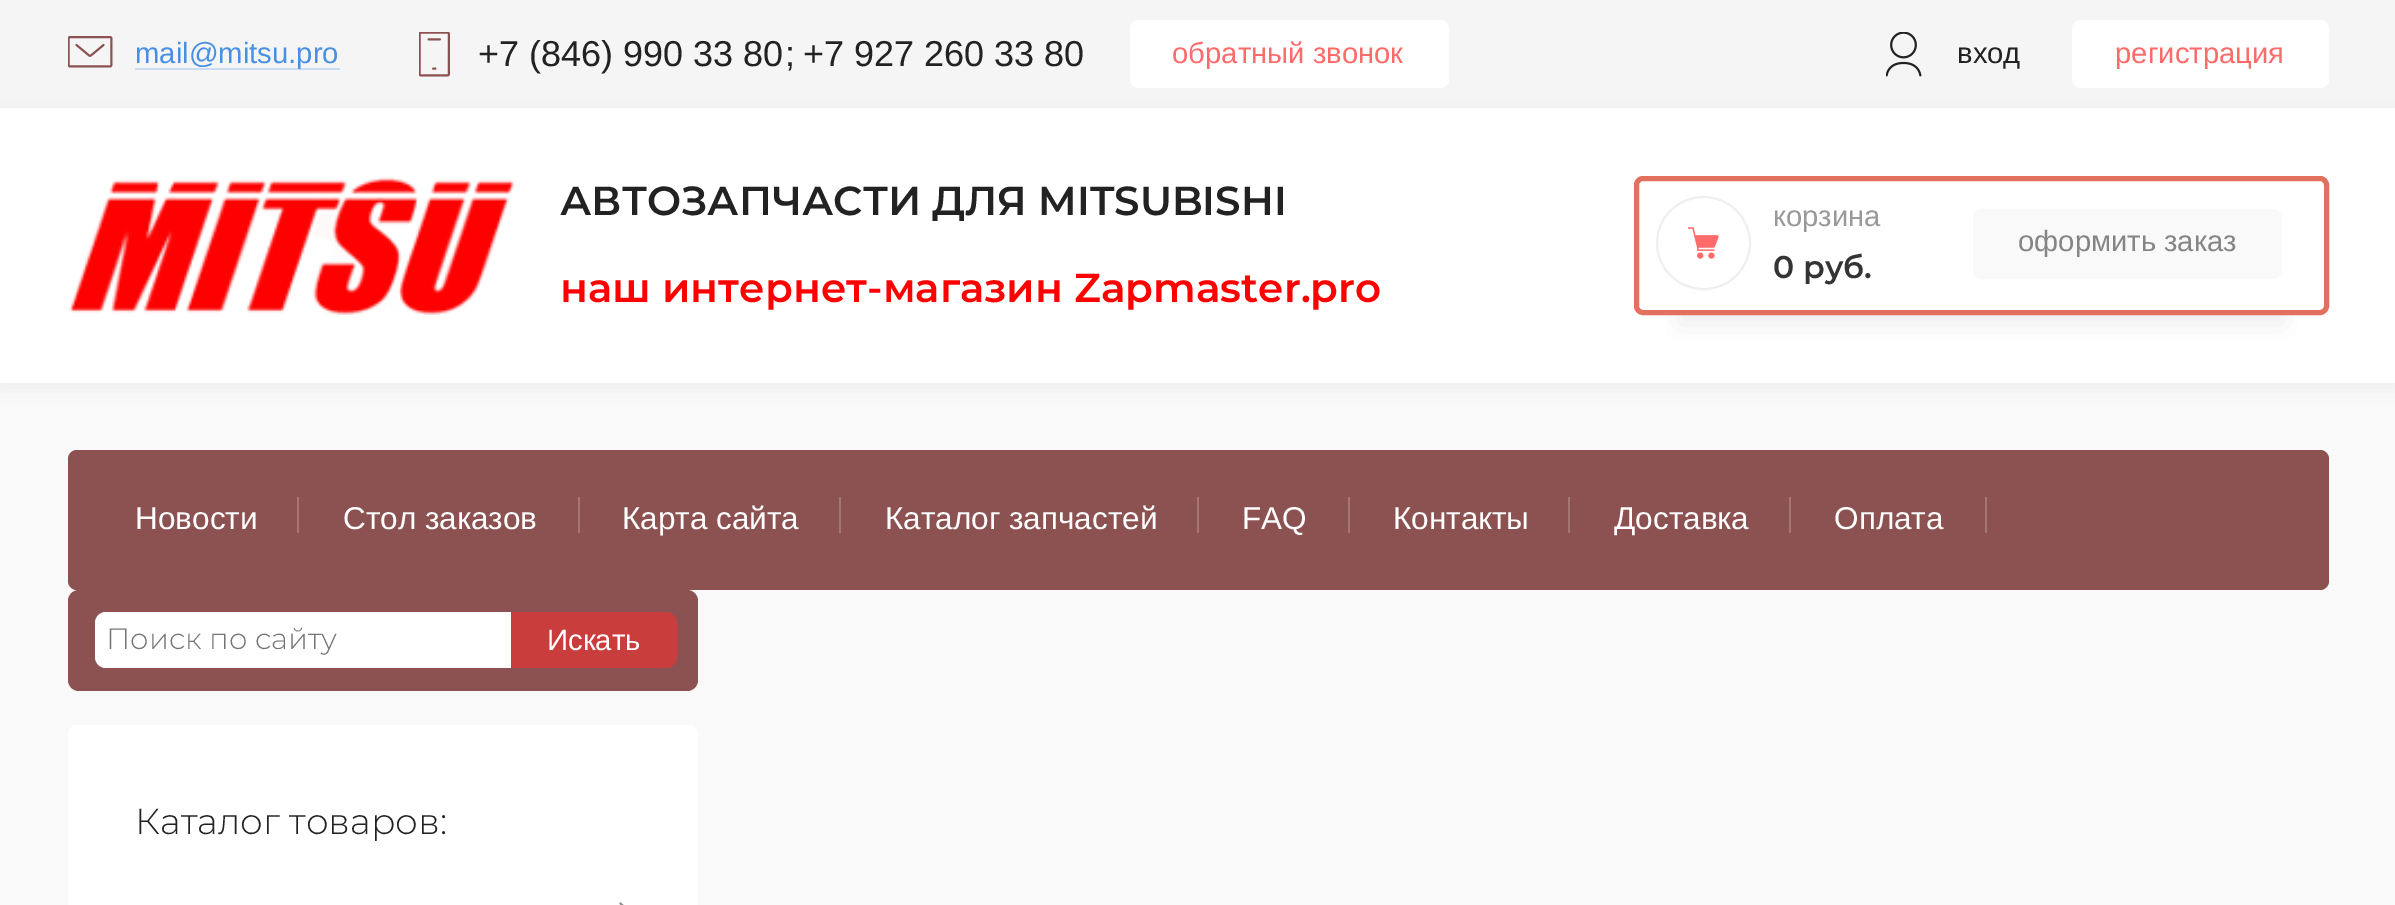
%!PS
<< /PageSize [2395 905] /PageUsesTransparency true >> setpagedevice
/rgb { dup -16 bitshift 255 div exch dup -8 bitshift 255 and 255 div exch 255 and 255 div setrgbcolor } def
/font { [ exch dup neg 0 0 3 -1 roll 0 0 ] selectfont } def
/text { moveto show } def
/alpha { dup .setfillconstantalpha .setstrokeconstantalpha } def
/roundrect { 5 dict begin { /r /h /w /y /x } { exch def } forall
  x r add y moveto x w add y 2 copy h add r arct x w add y h add x 1 index r arct
  x y h add x y r arct x y 2 copy exch w add exch r arct closepath end } def
/shadow { 12 dict begin { /a /b /q /h /w /y /x } { exch def } forall gsave /was 0 def
  9 -2 -9 { dup b mul 4 div /e exch def 1 sub .425 mul 2.718 exch exp 1 add a .99 .min exch div /now exch def
    1 1 now sub 1 was sub div sub alpha /was now def
    w h .min e 2 mul add 0 gt { x e sub y e sub w e 2 mul add h e 2 mul add
      q e add b .6 mul add w h .min 2 div e add .min 0 .max roundrect fill } if } for grestore end } def
/picture { 5 dict begin { /h /w /y /x /name } { exch def } forall
  gsave x y translate w h scale
  w h 8 [w 0 0 h 0 0] name (r) file false 3 colorimage grestore end } def
0 .pushpdf14devicefilter
0 905 translate 1 -1 scale
4 setmiterlimit
/s1 { /LiberationSans-Regular 29.25 font 16#4A90E2 rgb } def
/s2 { /LiberationSans-Regular 36 font 16#222222 rgb } def
/s3 { /LiberationSans-Regular 29.25 font 16#FF6A6A rgb } def
/s4 { /LiberationSans-Regular 29.25 font 16#222222 rgb } def
/s5 { /Montserrat-SemiBold 40.5 font 16#222222 rgb } def
/s6 { /Montserrat-SemiBold 40.5 font 16#FE0000 rgb } def
/s7 { /LiberationSans-Regular 29.25 font 16#999999 rgb } def
/s8 { /Montserrat-SemiBold 31.5 font 16#343434 rgb } def
/s9 { /LiberationSans-Regular 29.25 font 16#858585 rgb } def
/s10 { /LiberationSans-Regular 31.5 font 16#FFFFFF rgb } def
/s11 { /Montserrat-Light 29.25 font 16#757575 rgb } def
/s12 { /LiberationSans-Regular 29.25 font 16#FFFFFF rgb } def
/s13 { /Montserrat-Light 36 font 16#222222 rgb } def
16#F9F9F9 rgb
0 0 2395 905 rectfill
16#F5F5F5 rgb
0 0 2395 108 rectfill
(pic1.raw) 68 36 45 32 picture
s1
(mail@mitsu.pro) 135 63 text
0.25 alpha
135 68 205 2 rectfill
1 alpha
(pic2.raw) 419 32 31 45 picture
s2
(+7 \(846\) 990 33 80) 478 66 text
(;) 785 66 text
(+7 927 260 33 80) 803 66 text
16#000000 rgb
0 113 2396 274 0 9 0.05 shadow
16#FFFFFF rgb
1130 20 319 68 9 roundrect fill
s3
(обратный звонок) 1172 63 text
(pic3.raw) 1886 32 36 45 picture
s4
(вход) 1957 63 text
16#FFFFFF rgb
2072 20 257 68 9 roundrect fill
s3
(регистрация) 2115 63 text
16#FFFFFF rgb
0 108 2395 275 rectfill
(pic4.raw) 69 177 445 138 picture
s5
(АВТОЗАПЧАСТИ ДЛЯ MITSUBISHI) 560 215 text
s6
(наш интернет-магазин Zapmaster.pro) 560 302 text
gsave
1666 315 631 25 rectclip
16#8A8A8A rgb
1679 275 605 49 0 13.5 0.16 shadow
grestore
16#E1705F rgb
5 setlinewidth
1636.5 178.5 690 134 6.5 roundrect stroke
(pic5.raw) 1688 227 31 32 picture
16#EFEFEF rgb
2 setlinewidth
1657 197 93 92 46 roundrect stroke
s7
(корзина) 1773 226 text
s8
(0 руб.) 1773 278 text
16#F9F9F9 rgb
1973 209 309 70 9 roundrect fill
s9
(оформить заказ) 2018 251 text
16#8C5252 rgb
68 450 2261 140 9 roundrect fill
s10
(Новости) 135 529 text
16#A37575 rgb
297 497 2 36 rectfill
s10
(Стол заказов) 343 529 text
16#A37575 rgb
578 497 2 36 rectfill
s10
(Карта сайта) 622 529 text
16#A37575 rgb
839 497 2 36 rectfill
s10
(Каталог запчастей) 885 529 text
16#A37575 rgb
1197 497 2 36 rectfill
s10
(FAQ) 1242 529 text
16#A37575 rgb
1348 497 2 36 rectfill
s10
(Контакты) 1393 529 text
16#A37575 rgb
1568 497 2 36 rectfill
s10
(Доставка) 1614 529 text
16#A37575 rgb
1789 497 2 36 rectfill
s10
(Оплата) 1834 529 text
16#A37575 rgb
1985 497 2 36 rectfill
16#8C5252 rgb
68 590 630 101 11 roundrect fill
16#FFFFFF rgb
95 612 576 56 11 roundrect fill
s11
(Поиск по сайту) 106 649 text
16#C93D3D rgb
511 612 moveto 666 612 lineto 672 612 677 617 677 623 curveto 677 657 lineto 677 663 672 668 666 668 curveto 511 668 lineto closepath fill
s12
(Искать) 547 650 text
68 725 630 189 9 roundrect fill
s13
(Каталог товаров:) 135 834 text
(pic6.raw) 619 902 5 3 picture
.poppdf14devicefilter showpage
